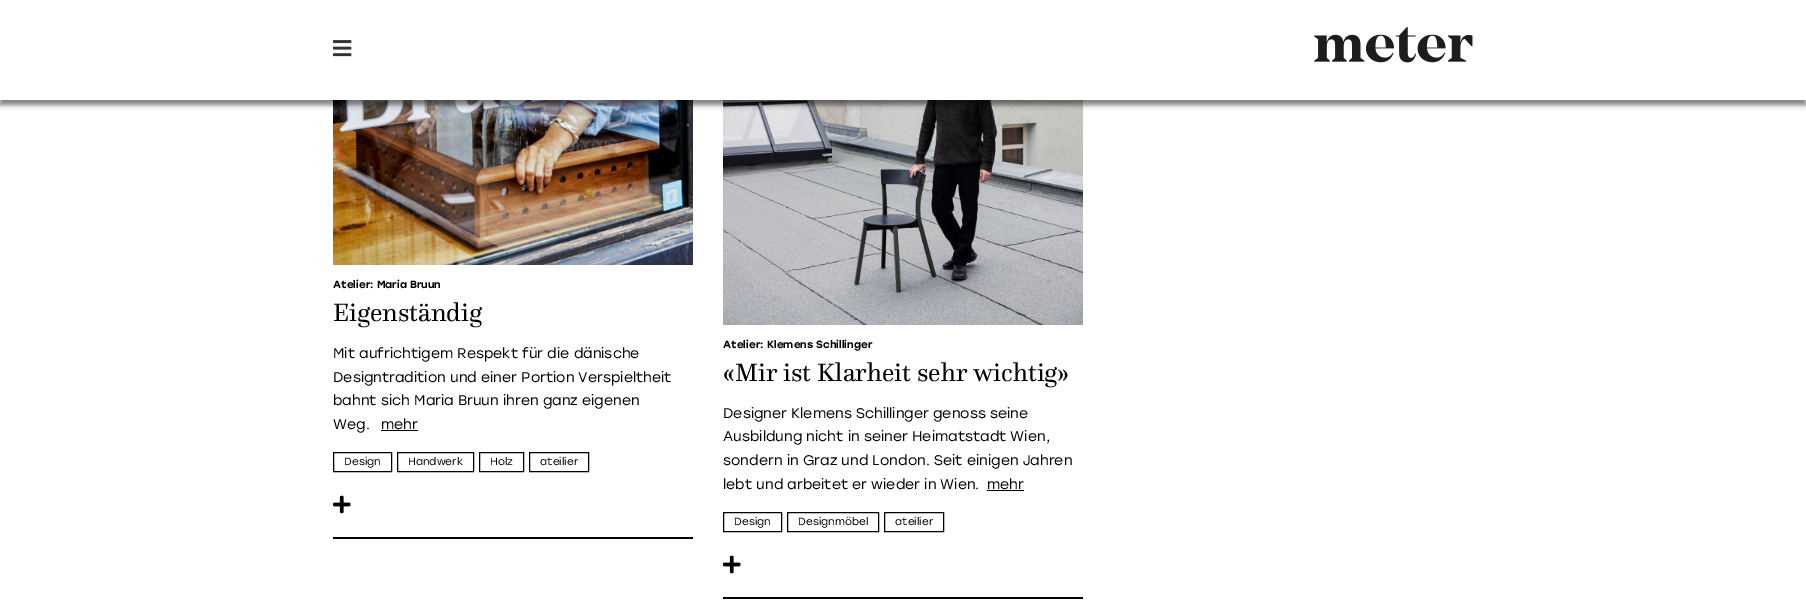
%!PS
<< /PageSize [1806 605] /PageUsesTransparency true >> setpagedevice
/rgb { dup -16 bitshift 255 div exch dup -8 bitshift 255 and 255 div exch 255 and 255 div setrgbcolor } def
/font { [ exch dup neg 0 0 3 -1 roll 0 0 ] selectfont } def
/text { moveto show } def
/alpha { dup .setfillconstantalpha .setstrokeconstantalpha } def
/roundrect { 5 dict begin { /r /h /w /y /x } { exch def } forall
  x r add y moveto x w add y 2 copy h add r arct x w add y h add x 1 index r arct
  x y h add x y r arct x y 2 copy exch w add exch r arct closepath end } def
/shadow { 12 dict begin { /a /b /q /h /w /y /x } { exch def } forall gsave /was 0 def
  9 -2 -9 { dup b mul 4 div /e exch def 1 sub .425 mul 2.718 exch exp 1 add a .99 .min exch div /now exch def
    1 1 now sub 1 was sub div sub alpha /was now def
    w h .min e 2 mul add 0 gt { x e sub y e sub w e 2 mul add h e 2 mul add
      q e add b .6 mul add w h .min 2 div e add .min 0 .max roundrect fill } if } for grestore end } def
/picture { 5 dict begin { /h /w /y /x /name } { exch def } forall
  gsave x y translate w h scale
  w h 8 [w 0 0 h 0 0] name (r) file false 3 colorimage grestore end } def
0 .pushpdf14devicefilter
0 605 translate 1 -1 scale
4 setmiterlimit
/s1 { /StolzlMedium-Regular 10.5 font 16#000000 rgb } def
/s2 { /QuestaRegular-Regular 26 font 16#000000 rgb } def
/s3 { /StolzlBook-Regular 14 font 16#000000 rgb } def
/s4 { /StolzlBook-Regular 10.5 font 16#000000 rgb } def
16#FFFFFF rgb
0 0 1806 605 rectfill
(pic3.raw) 333 100 360 165 picture
(pic5.raw) 723 100 360 225 picture
16#000000 rgb
0 5 1806 100 0 2.5 0.5 shadow
16#FFFFFF rgb
0 0 1806 100 rectfill
(pic1.raw) 333 40 19 17 picture
(pic2.raw) 1314 27 159 36 picture
16#000000 rgb
333 537 360 2 rectfill
s1
(Atelier: Maria Bruun) 333 288 text
s2
(Eigenständig) 333 321 text
s3
(Mit aufrichtigem Respekt für die dänische) 333 358 text
(Designtradition und einer Portion Verspieltheit) 333 382 text
(bahnt sich Maria Bruun ihren ganz eigenen) 333 405 text
(Weg.) 333 429 text
(mehr) 381 429 text
381 430 37 1 rectfill
333.5 452.5 58 19 rectstroke
s4
(Design) 344 465 text
397.5 452.5 76 19 rectstroke
(Handwerk) 408 465 text
479.5 452.5 44 19 rectstroke
(Holz) 490 465 text
529.5 452.5 59 19 rectstroke
(ateilier) 540 465 text
(pic4.raw) 333 495 18 19 picture
723 597 360 2 rectfill
s1
(Atelier: Klemens Schillinger) 723 348 text
s2
(«Mir ist Klarheit sehr wichtig») 723 381 text
s3
(Designer Klemens Schillinger genoss seine) 723 418 text
(Ausbildung nicht in seiner Heimatstadt Wien,) 723 441 text
(sondern in Graz und London. Seit einigen Jahren) 723 465 text
(lebt und arbeitet er wieder in Wien.) 723 489 text
(mehr) 987 489 text
987 490 37 1 rectfill
723.5 512.5 58 19 rectstroke
s4
(Design) 734 525 text
787.5 512.5 91 19 rectstroke
(Designmöbel) 798 525 text
884.5 512.5 59 19 rectstroke
(ateilier) 895 525 text
(pic4.raw) 723 555 18 19 picture
.poppdf14devicefilter showpage
